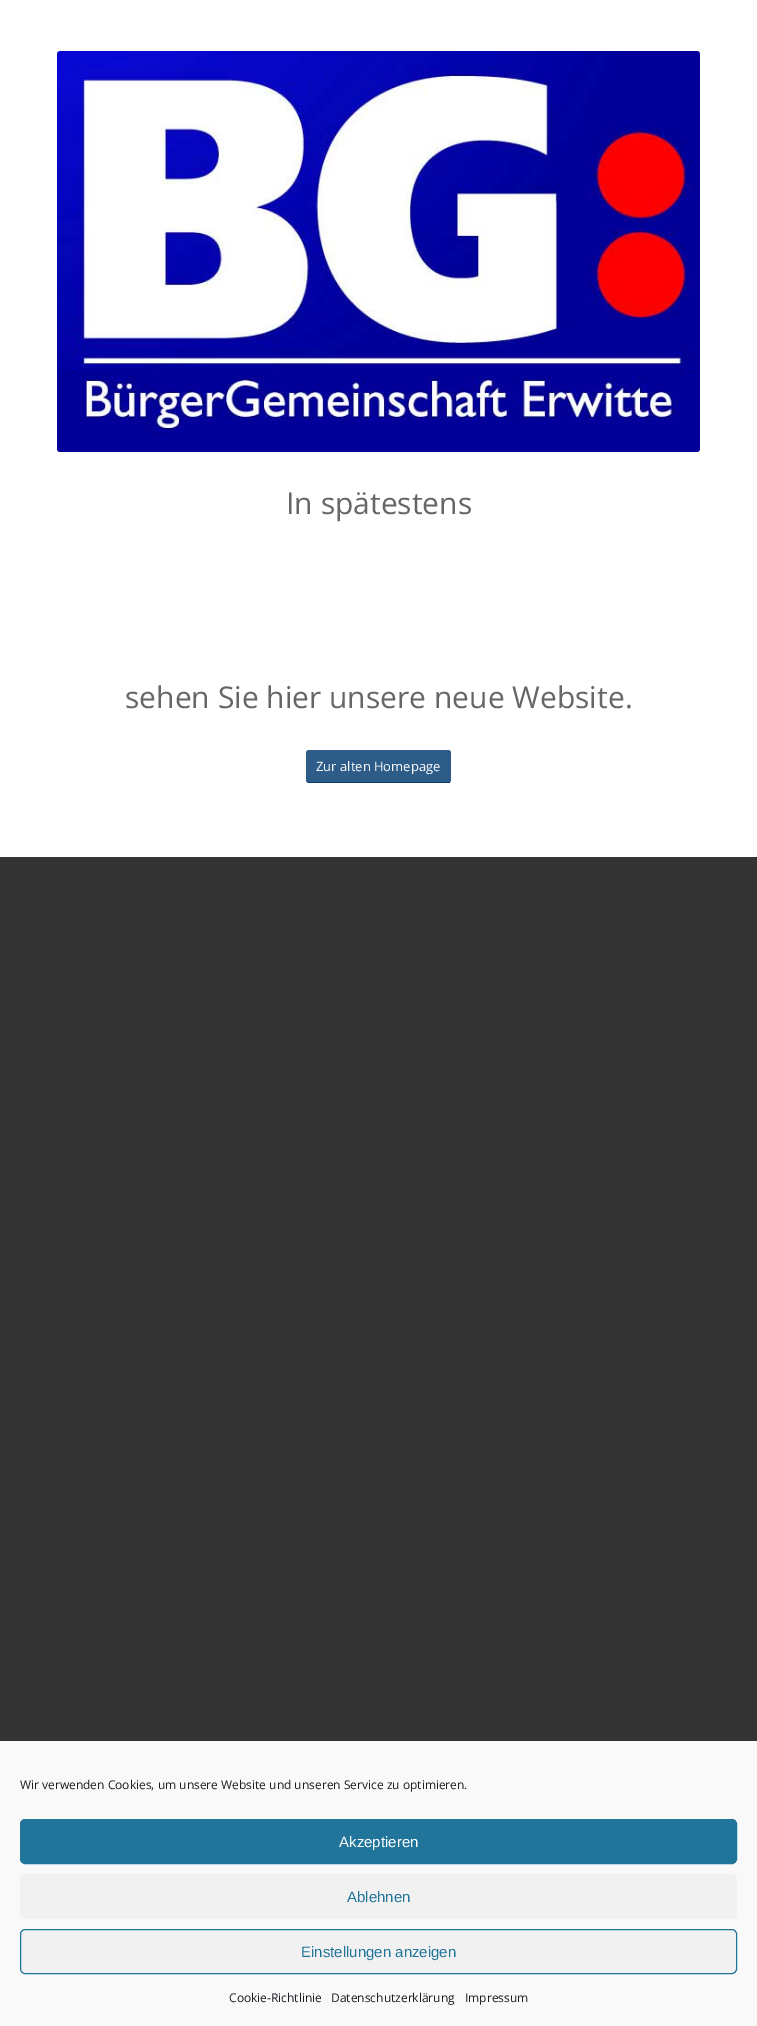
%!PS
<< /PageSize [757 2026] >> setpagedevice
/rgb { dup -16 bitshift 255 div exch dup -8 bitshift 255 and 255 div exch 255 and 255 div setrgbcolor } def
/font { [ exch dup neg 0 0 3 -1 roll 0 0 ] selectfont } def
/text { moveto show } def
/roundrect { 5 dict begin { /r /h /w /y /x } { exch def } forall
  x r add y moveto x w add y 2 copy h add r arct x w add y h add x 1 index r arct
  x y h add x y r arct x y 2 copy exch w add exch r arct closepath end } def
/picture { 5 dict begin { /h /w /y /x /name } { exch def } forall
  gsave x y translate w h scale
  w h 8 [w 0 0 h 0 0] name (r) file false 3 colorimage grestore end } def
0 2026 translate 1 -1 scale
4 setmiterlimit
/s1 { /OpenSans-Regular 30 font 16#666666 rgb } def
/s2 { /OpenSans-Regular 13 font 16#FFFFFF rgb } def
/s3 { /OpenSans-Regular 12 font 16#191E23 rgb } def
/s4 { /LiberationSans-Regular 15 font 16#FFFFFF rgb } def
/s5 { /LiberationSans-Regular 15 font 16#21759B rgb } def
16#333333 rgb
0 0 757 2026 rectfill
16#FFFFFF rgb
0 0 757 857 rectfill
(pic1.raw) 57 51 643 401 picture
s1
(In spätestens) 286 514 text
(sehen Sie hier unsere neue Website.) 125 708 text
16#2D5C88 rgb
306 750 145 33 3 roundrect fill
16#0B3A66 rgb
308 782 142 1 rectfill
s2
(Zur alten Homepage) 316 771 text
16#F9F9F9 rgb
0 1741 757 285 rectfill
s3
(Wir verwenden Cookies, um unsere Website und unseren Service zu optimieren.) 20 1789 text
16#21759B rgb
20.5 1819.5 716 44 4.5 roundrect gsave fill grestore
stroke
s4
(Akzeptieren) 339 1847 text
16#F1F1F1 rgb
20 1874 717 45 5 roundrect fill
s5
(Ablehnen) 347 1902 text
16#F1F1F1 rgb
20.5 1929.5 716 44 4.5 roundrect gsave fill grestore
16#21759B rgb
stroke
(Einstellungen anzeigen) 301 1957 text
s3
(Cookie-Richtlinie) 229 2002 text
(Datenschutzerklärung) 331 2002 text
(Impressum) 465 2002 text
showpage
